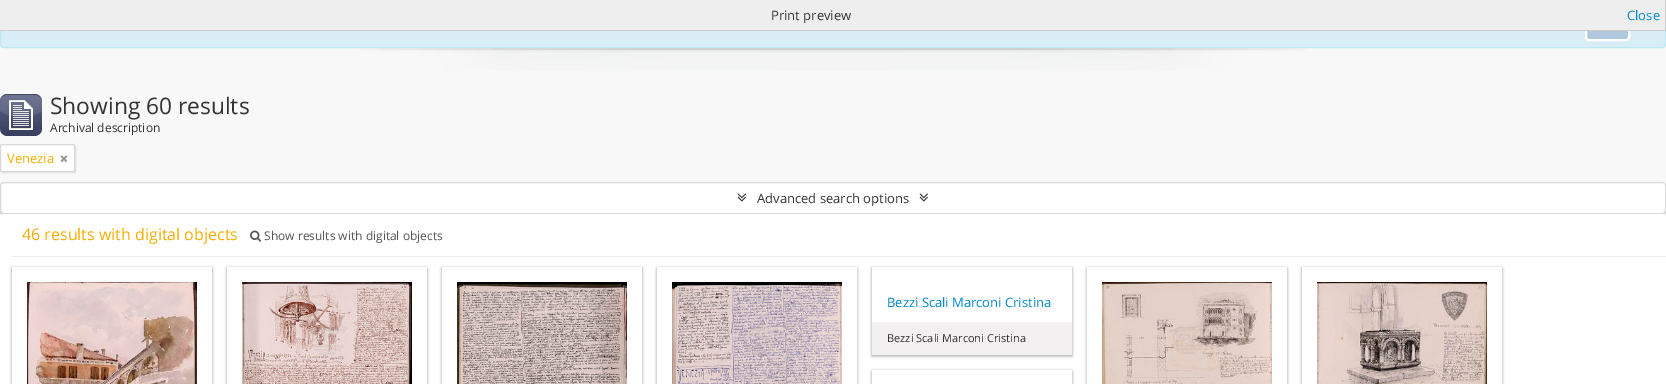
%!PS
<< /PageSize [1666 384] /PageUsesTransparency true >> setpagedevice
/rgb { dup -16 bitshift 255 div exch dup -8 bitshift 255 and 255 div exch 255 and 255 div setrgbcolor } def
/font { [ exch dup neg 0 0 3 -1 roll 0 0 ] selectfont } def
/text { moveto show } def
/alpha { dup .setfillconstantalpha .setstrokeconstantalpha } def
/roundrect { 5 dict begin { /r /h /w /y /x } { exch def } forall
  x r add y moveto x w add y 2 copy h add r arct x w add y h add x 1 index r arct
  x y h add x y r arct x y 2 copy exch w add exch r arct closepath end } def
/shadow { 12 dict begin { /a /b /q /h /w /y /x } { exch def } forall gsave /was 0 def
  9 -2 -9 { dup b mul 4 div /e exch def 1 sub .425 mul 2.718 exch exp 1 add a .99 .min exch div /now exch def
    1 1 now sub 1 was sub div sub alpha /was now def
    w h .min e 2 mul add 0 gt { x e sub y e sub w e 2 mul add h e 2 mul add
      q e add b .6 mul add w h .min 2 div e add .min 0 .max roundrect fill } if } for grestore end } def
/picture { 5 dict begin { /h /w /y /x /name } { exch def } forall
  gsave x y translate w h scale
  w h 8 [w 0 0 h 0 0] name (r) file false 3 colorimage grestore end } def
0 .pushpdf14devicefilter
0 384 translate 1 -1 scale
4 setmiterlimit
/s1 { /OpenSans-Regular 13 font 16#333333 rgb } def
/s2 { /OpenSans-Regular 13 font 16#0088CC rgb } def
/s3 { /OpenSans-Regular 22.75 font 16#333333 rgb } def
/s4 { /OpenSans-Regular 12 font 16#333333 rgb } def
/s5 { /OpenSans-Regular 13 font 16#F6AC00 rgb } def
/s6 { /OpenSans-Regular 16 font 16#F6AC00 rgb } def
/s7 { /OpenSans-Regular 12 font 16#555555 rgb } def
/s8 { /OpenSans-Regular 11 font 16#333333 rgb } def
16#F8F8F8 rgb
0 0 1666 384 rectfill
16#D9EDF7 rgb
0.5 0.5 1665 47 3.5 roundrect gsave fill grestore
16#BCE8F1 rgb
stroke
16#AFC8DF rgb
1586 10 43 30 3 roundrect gsave fill grestore
16#FFFFFF rgb
2 setlinewidth
stroke
(pic1.raw) 360 48 946 23 picture
16#EEEEEE rgb
0 0 1665 30 rectfill
16#CCCCCC rgb
1665 0 1 31 rectfill
0 30 1666 1 rectfill
s1
(Print preview) 771 20 text
s2
(Close) 1627 20 text
(pic2.raw) 0 94 42 42 picture
s3
(Showing 60 results) 50 114 text
s4
(Archival description) 50 132 text
16#000000 rgb
1 145 75 28 2 0.5 0.1 shadow
16#FFFFFF rgb
0.5 144.5 74 27 1.5 roundrect gsave fill grestore
16#D9D9D9 rgb
1 setlinewidth
stroke
s5
(Venezia) 7 163 text
(pic3.raw) 60 155 8 7 picture
16#000000 rgb
0 183 1666 32 4 0.5 0.2 shadow
16#FFFFFF rgb
0.5 182.5 1665 31 3.5 roundrect gsave fill grestore
16#D9D9D9 rgb
stroke
(pic4.raw) 737 193 9 9 picture
s1
(Advanced search options) 757 203 text
(pic4.raw) 919 193 9 9 picture
16#FFFFFF rgb
0 214 1666 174 4 roundrect fill
16#EEEEEE rgb
12 256 1654 1 rectfill
s6
(46 results with digital objects) 22 240 text
(pic5.raw) 250 230 12 12 picture
s7
(Show results with digital objects) 264 240 text
gsave
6 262 moveto 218 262 lineto 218 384 lineto 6 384 lineto closepath 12 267 moveto 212 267 lineto 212 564 lineto 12 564 lineto closepath eoclip newpath
16#191919 rgb
12 268 200 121 0 1.5 0.4 shadow
grestore
(pic6.raw) 27 282 170 102 picture
gsave
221 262 moveto 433 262 lineto 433 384 lineto 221 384 lineto closepath 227 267 moveto 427 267 lineto 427 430 lineto 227 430 lineto closepath eoclip newpath
16#191919 rgb
227 268 200 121 0 1.5 0.4 shadow
grestore
(pic7.raw) 242 282 170 102 picture
gsave
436 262 moveto 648 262 lineto 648 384 lineto 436 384 lineto closepath 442 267 moveto 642 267 lineto 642 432 lineto 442 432 lineto closepath eoclip newpath
16#191919 rgb
442 268 200 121 0 1.5 0.4 shadow
grestore
(pic8.raw) 457 282 170 102 picture
gsave
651 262 moveto 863 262 lineto 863 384 lineto 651 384 lineto closepath 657 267 moveto 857 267 lineto 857 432 lineto 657 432 lineto closepath eoclip newpath
16#191919 rgb
657 268 200 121 0 1.5 0.4 shadow
grestore
(pic9.raw) 672 282 170 102 picture
gsave
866 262 moveto 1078 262 lineto 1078 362 lineto 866 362 lineto closepath 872 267 moveto 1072 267 lineto 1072 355 lineto 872 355 lineto closepath eoclip newpath
16#191919 rgb
872 268 200 88 0 1.5 0.4 shadow
grestore
s2
(Bezzi Scali Marconi Cristina) 887 307 text
16#F2F0F0 rgb
872 322 200 33 rectfill
s8
(Bezzi Scali Marconi Cristina) 887 342 text
gsave
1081 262 moveto 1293 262 lineto 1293 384 lineto 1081 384 lineto closepath 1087 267 moveto 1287 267 lineto 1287 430 lineto 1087 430 lineto closepath eoclip newpath
16#191919 rgb
1087 268 200 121 0 1.5 0.4 shadow
grestore
(pic10.raw) 1102 282 170 102 picture
gsave
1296 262 moveto 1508 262 lineto 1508 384 lineto 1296 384 lineto closepath 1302 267 moveto 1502 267 lineto 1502 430 lineto 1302 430 lineto closepath eoclip newpath
16#191919 rgb
1302 268 200 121 0 1.5 0.4 shadow
grestore
(pic11.raw) 1317 282 170 102 picture
gsave
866 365 moveto 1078 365 lineto 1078 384 lineto 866 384 lineto closepath 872 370 moveto 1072 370 lineto 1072 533 lineto 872 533 lineto closepath eoclip newpath
16#191919 rgb
872 371 200 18 0 1.5 0.4 shadow
grestore
.poppdf14devicefilter showpage
